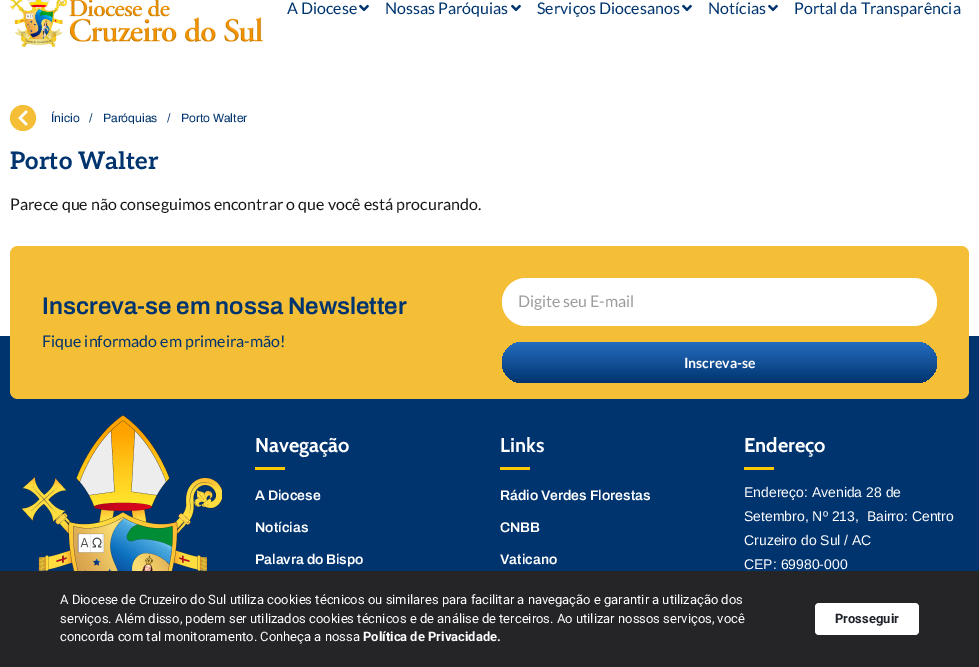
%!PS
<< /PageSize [979 667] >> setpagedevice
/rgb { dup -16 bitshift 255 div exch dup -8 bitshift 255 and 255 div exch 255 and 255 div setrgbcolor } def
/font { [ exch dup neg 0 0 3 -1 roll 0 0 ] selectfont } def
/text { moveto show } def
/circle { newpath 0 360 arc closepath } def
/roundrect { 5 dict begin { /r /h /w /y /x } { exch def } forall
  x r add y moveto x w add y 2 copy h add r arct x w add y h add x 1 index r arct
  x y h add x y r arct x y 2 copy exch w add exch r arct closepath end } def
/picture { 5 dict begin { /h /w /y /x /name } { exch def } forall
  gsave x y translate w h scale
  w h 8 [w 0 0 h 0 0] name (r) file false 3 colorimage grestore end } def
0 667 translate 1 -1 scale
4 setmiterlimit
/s1 { /Lato-Regular 16 font 16#00346F rgb } def
/s2 { /Archivo-Regular 12 font 16#00346F rgb } def
/s3 { /Aleo-Bold 24 font 16#00346F rgb } def
/s4 { /Lato-Regular 16 font 16#181818 rgb } def
/s5 { /Archivo-SemiBold 24 font 16#00346F rgb } def
/s6 { /Lato-Bold 14 font 16#FFFFFF rgb } def
/s7 { /Cabin-Bold 20 font 16#FFFFFF rgb } def
/s8 { /Archivo-SemiBold 14 font 16#FFFFFF rgb } def
/s9 { /Roboto-Regular 13 font 16#FFFFFF rgb } def
/s10 { /Roboto-Bold 13 font 16#FFFFFF rgb } def
/s11 { /Roboto-Bold 13 font 16#1D2129 rgb } def
/s12 { /LiberationSans-Regular 14 font 16#FFFFFF rgb } def
16#FFFFFF rgb
0 0 979 667 rectfill
(pic1.raw) 10 0 253 47 picture
s1
(A Diocese) 287 14 text
(pic2.raw) 359 4 10 8 picture
(Nossas Paróquias) 385 14 text
(pic2.raw) 511 4 10 8 picture
(Serviços Diocesanos) 537 14 text
(pic2.raw) 682 4 10 8 picture
(Notícias) 708 14 text
(pic2.raw) 768 4 10 8 picture
(Portal da Transparência) 794 14 text
16#F4BF36 rgb
23 118 13 circle fill
(pic3.raw) 18 110 10 16 picture
s2
(Ínicio) 51 122 text
(/) 89 122 text
(Paróquias) 103 122 text
(/) 167 122 text
(Porto Walter) 181 122 text
s3
(Porto Walter) 10 169 text
s4
(Parece que não conseguimos encontrar o que você está procurando.) 10 210 text
16#00346F rgb
0 336 979 235 rectfill
16#F4BF36 rgb
10 246 959 153 8 roundrect fill
s5
(Inscreva-se em nossa Newsletter) 42 314 text
s1
(Fique informado em primeira-mão!) 42 347 text
16#FFFFFF rgb
502 278 435 48 24 roundrect fill
16#9D9D9D rgb
518 307 moveto -0.1 0 (Digite seu E-mail) ashow
gsave 502 342 435 41 20.5 roundrect clip newpath
<< /ShadingType 2 /ColorSpace /DeviceRGB /Coords [720 383 720 342] /Extend [true true] /Function << /FunctionType 2 /Domain [0 1] /C0 [0 0.204 0.435] /C1 [0.145 0.427 0.749] /N 1 >> >> shfill grestore
s6
(Inscreva-se) 684 368 text
(pic4.raw) 22 415 200 156 picture
s7
(Navegação) 255 452 text
16#FCC800 rgb
255 467 30 3 rectfill
s8
(A Diocese) 255 500 text
(Notícias) 255 532 text
(Palavra do Bispo) 255 564 text
16#252528 rgb
0 571 979 96 rectfill
s9
(A Diocese de Cruzeiro do Sul utiliza cookies técnicos ou similares para facilitar a navegação e garantir a utilização dos) 60 604 text
(serviços. Além disso, podem ser utilizados cookies técnicos e de análise de terceiros. Ao utilizar nossos serviços, você) 60 623 text
(concorda com tal monitoramento. Conheça a nossa) 60 641 text
s10
(Política de Privacidade.) 363 641 text
815 603 104 32 4 roundrect fill
s11
(Prosseguir) 835 623 text
s7
(Links) 500 452 text
16#FCC800 rgb
500 467 30 3 rectfill
s8
(Rádio Verdes Florestas) 500 500 text
(CNBB) 500 532 text
(Vaticano) 500 564 text
s7
(Endereço) 744 452 text
16#FCC800 rgb
744 467 30 3 rectfill
s12
(Endereço: Avenida 28 de) 744 497 text
(Setembro, Nº 213,  Bairro: Centro) 744 521 text
(Cruzeiro do Sul / AC) 744 545 text
(CEP: 69980-000) 744 569 text
showpage
